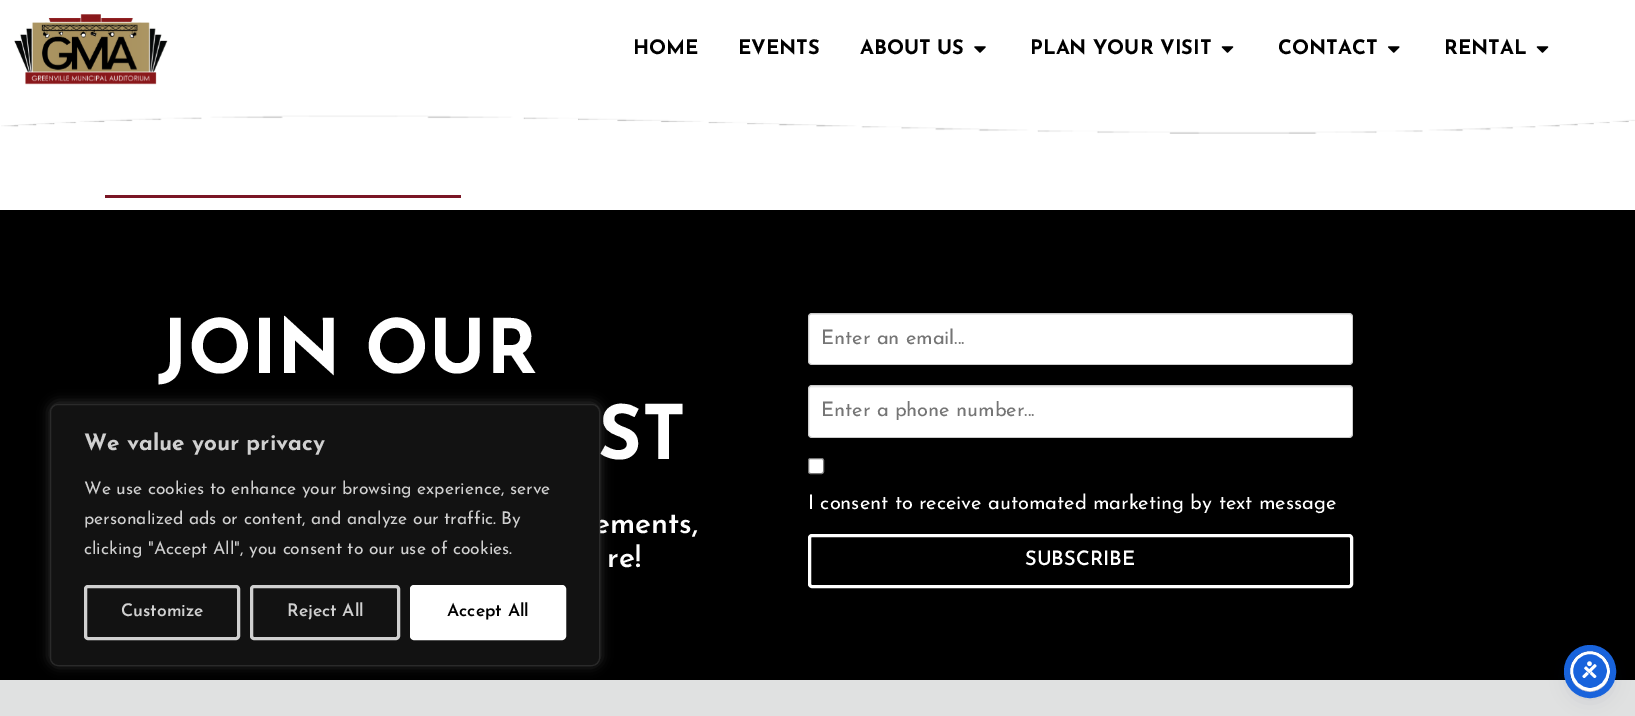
%!PS
<< /PageSize [1635 716] /PageUsesTransparency true >> setpagedevice
/rgb { dup -16 bitshift 255 div exch dup -8 bitshift 255 and 255 div exch 255 and 255 div setrgbcolor } def
/font { [ exch dup neg 0 0 3 -1 roll 0 0 ] selectfont } def
/text { moveto show } def
/alpha { dup .setfillconstantalpha .setstrokeconstantalpha } def
/circle { newpath 0 360 arc closepath } def
/roundrect { 5 dict begin { /r /h /w /y /x } { exch def } forall
  x r add y moveto x w add y 2 copy h add r arct x w add y h add x 1 index r arct
  x y h add x y r arct x y 2 copy exch w add exch r arct closepath end } def
/shadow { 12 dict begin { /a /b /q /h /w /y /x } { exch def } forall gsave /was 0 def
  9 -2 -9 { dup b mul 4 div /e exch def 1 sub .425 mul 2.718 exch exp 1 add a .99 .min exch div /now exch def
    1 1 now sub 1 was sub div sub alpha /was now def
    w h .min e 2 mul add 0 gt { x e sub y e sub w e 2 mul add h e 2 mul add
      q e add b .6 mul add w h .min 2 div e add .min 0 .max roundrect fill } if } for grestore end } def
/picture { 5 dict begin { /h /w /y /x /name } { exch def } forall
  gsave x y translate w h scale
  w h 8 [w 0 0 h 0 0] name (r) file false 3 colorimage grestore end } def
0 .pushpdf14devicefilter
0 716 translate 1 -1 scale
4 setmiterlimit
/s1 { /JosefinSans-Bold 20 font 16#000000 rgb } def
/s2 { /JosefinSans-Bold 75 font 16#FFFFFF rgb } def
/s3 { /JosefinSans-SemiBold 30 font 16#FFFFFF rgb } def
/s4 { /JosefinSans-Regular 20 font 16#757575 rgb } def
/s5 { /JosefinSans-Regular 20 font 16#FFFFFF rgb } def
/s6 { /JosefinSans-SemiBold 20 font 16#FFFFFF rgb } def
/s7 { /JosefinSans-Bold 22.5 font 16#D0D0D0 rgb } def
/s8 { /JosefinSans-Regular 17.5 font 16#D0D0D0 rgb } def
/s9 { /JosefinSans-SemiBold 17.5 font 16#D0D0D0 rgb } def
/s10 { /JosefinSans-SemiBold 17.5 font 16#000000 rgb } def
16#FFFFFF rgb
0 0 1635 716 rectfill
(pic1.raw) 14 14 154 71 picture
s1
(HOME) 633 54 text
(EVENTS) 738 54 text
(ABOUT US) 860 54 text
(pic2.raw) 974 46 12 7 picture
(PLAN YOUR VISIT) 1030 54 text
(pic3.raw) 1221 46 13 7 picture
(CONTACT) 1278 54 text
(pic4.raw) 1388 46 12 7 picture
(RENTAL) 1444 54 text
(pic3.raw) 1536 46 13 7 picture
(pic5.raw) 1 115 1634 19 picture
16#7A1625 rgb
105 195 356 3 rectfill
16#000000 rgb
0 210 1635 470 rectfill
s2
(JOIN OUR) 158 373 text
(ST) 598 459 text
s3
(ements,) 594 533 text
(re!) 607 567 text
808 313 545 52 4 roundrect fill
16#F5F5F5 rgb
811 315 moveto 1349 315 lineto 1350 315 1351 316 1351 318 curveto 1351 316 lineto 1351 315 1350 314 1348 314 curveto 812 314 lineto 810 314 809 315 809 316 curveto 809 318 lineto 809 316 810 315 811 315 curveto closepath fill
0.2 alpha
16#000000 rgb
808.5 313.5 544 51 3.5 roundrect stroke
1 alpha
s4
(Enter an email...) 821 344 text
16#FFFFFF rgb
808 385 545 53 4 roundrect fill
16#F5F5F5 rgb
811 388 moveto 1349 388 lineto 1350 388 1351 389 1351 390 curveto 1351 388 lineto 1351 387 1350 386 1348 386 curveto 812 386 lineto 810 386 809 387 809 388 curveto 809 390 lineto 809 389 810 388 811 388 curveto closepath fill
0.2 alpha
16#000000 rgb
808.5 385.5 544 52 3.5 roundrect stroke
gsave
821 401 518 20 rectclip
1 alpha
s4
(Enter a phone number...) 821 416 text
grestore
1 alpha
16#FFFFFF rgb
808.5 458.5 15 15 2 roundrect gsave fill grestore
16#767676 rgb
stroke
s5
(I consent to receive automated marketing by text message) 808 509 text
3 setlinewidth
809.5 535.5 542 51 2.5 roundrect stroke
s6
(SUBSCRIBE) 1025 565 text
16#E0E1E1 rgb
0 680 1635 36 rectfill
16#ACABAB rgb
50 403 550 262 8 6 0.3 shadow
16#121212 rgb
50.5 404.5 549 261 7.5 roundrect gsave fill grestore
16#2A2A2A rgb
1 setlinewidth
stroke
s7
(We value your privacy) 84 450 text
s8
(We use cookies to enhance your browsing experience, serve) 84 494 text
(personalized ads or content, and analyze our traffic. By) 84 524 text
(clicking "Accept All", you consent to our use of cookies.) 84 554 text
3 setlinewidth
85.5 586.5 153 52 2.5 roundrect stroke
s9
(Customize) 121 616 text
251.5 586.5 147 52 2.5 roundrect stroke
(Reject All) 287 616 text
16#FFFFFF rgb
411.5 586.5 153 52 2.5 roundrect gsave fill grestore
stroke
s10
(Accept All) 447 616 text
16#5D6494 rgb
1570 654 40 40 20 2.5 0.2 shadow
16#252C61 rgb
1570 658 40 40 20 9.5 0.15 shadow
16#1863DC rgb
1590 671 18.5 circle gsave fill grestore
16#FFFFFF rgb
stroke
16#1863DC rgb
6 setlinewidth
1567 648 46 47 23 roundrect stroke
(pic6.raw) 1582 661 15 17 picture
.poppdf14devicefilter showpage
